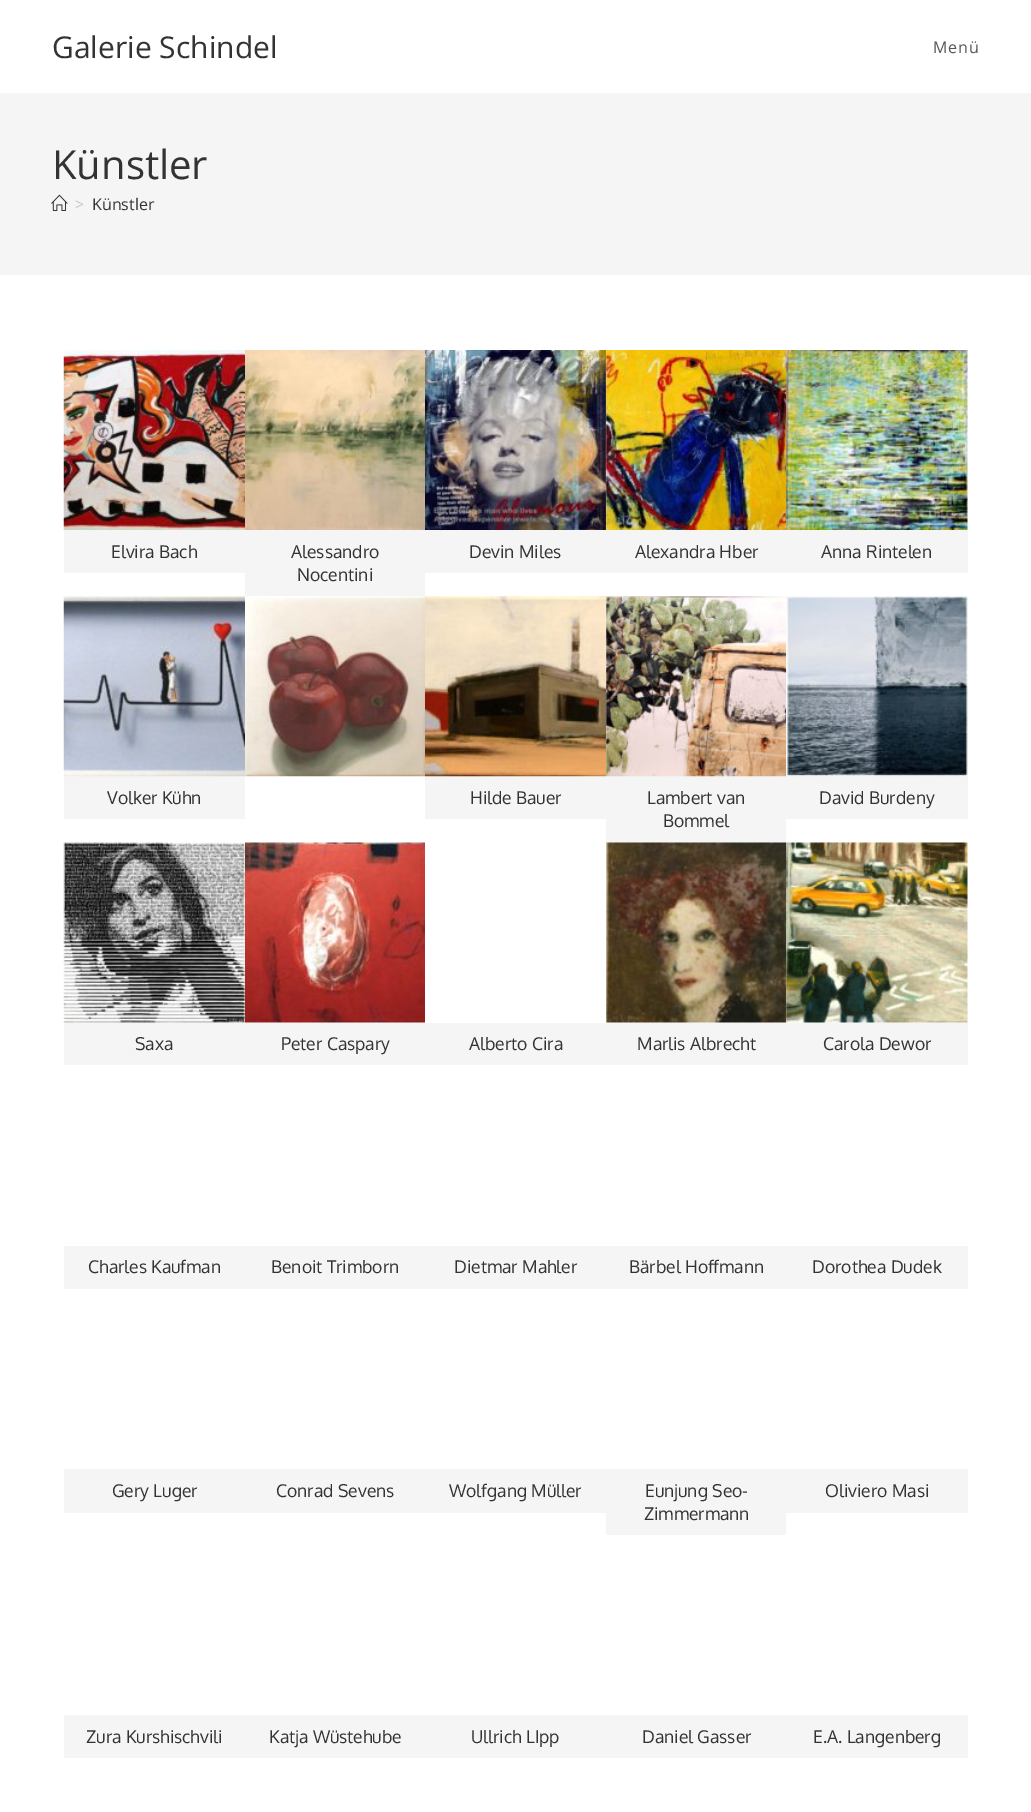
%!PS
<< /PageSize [1031 1812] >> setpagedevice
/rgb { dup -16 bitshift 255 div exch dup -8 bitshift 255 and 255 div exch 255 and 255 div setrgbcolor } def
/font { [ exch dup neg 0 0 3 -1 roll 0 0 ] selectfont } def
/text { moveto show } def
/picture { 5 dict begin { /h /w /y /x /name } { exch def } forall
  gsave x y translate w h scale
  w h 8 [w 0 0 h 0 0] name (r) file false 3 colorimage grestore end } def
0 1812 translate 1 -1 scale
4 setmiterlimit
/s1 { /OpenSans-Regular 30 font 16#333333 rgb } def
/s2 { /OpenSans-Regular 40 font 16#333333 rgb } def
/s3 { /OpenSans-Regular 16 font 16#C6C6C6 rgb } def
/s4 { /OpenSans-Regular 16 font 16#333333 rgb } def
/s5 { /Oxygen-Regular 17.5 font 16#333333 rgb } def
16#FFFFFF rgb
0 0 1031 1812 rectfill
16#F7F7F7 rgb
0 93 1031 1 rectfill
s1
(Galerie Schindel) 52 58 text
/OpenSans-Regular 16 font
16#555555 rgb
933 53 moveto 1 0 (Menü) ashow
16#F5F5F5 rgb
0 94 1031 181 rectfill
s2
(Künstler) 52 179 text
(pic1.raw) 51 194 17 17 picture
s3
(>) 75 210 text
s4
(Künstler) 92 210 text
(pic2.raw) 63 350 182 180 picture
16#F5F5F5 rgb
64 530 181 43 rectfill
s5
(Elvira Bach) 111 558 text
(pic3.raw) 245 350 180 180 picture
16#F5F5F5 rgb
245 530 180 66 rectfill
s5
(Alessandro) 291 558 text
(Nocentini) 297 581 text
(pic4.raw) 425 350 182 180 picture
16#F5F5F5 rgb
425 530 543 43 rectfill
s5
(Devin Miles) 469 558 text
(pic5.raw) 606 350 181 180 picture
(Alexandra Hber) 635 558 text
(pic6.raw) 786 350 182 180 picture
(Anna Rintelen) 821 558 text
(pic7.raw) 245 596 180 181 picture
16#F5F5F5 rgb
64 776 181 43 rectfill
(pic8.raw) 63 596 182 181 picture
s5
(Volker Kühn) 107 804 text
16#F5F5F5 rgb
425 776 181 43 rectfill
(pic9.raw) 425 596 182 181 picture
s5
(Hilde Bauer) 470 804 text
16#F5F5F5 rgb
606 776 180 67 rectfill
(pic10.raw) 606 596 181 181 picture
s5
(Lambert van) 647 804 text
(Bommel) 663 827 text
16#F5F5F5 rgb
786 776 182 43 rectfill
(pic11.raw) 786 596 182 181 picture
s5
(David Burdeny) 819 804 text
(pic12.raw) 63 842 182 181 picture
16#F5F5F5 rgb
64 1023 904 42 rectfill
s5
(Saxa) 135 1050 text
(pic13.raw) 245 842 180 181 picture
(Peter Caspary) 281 1050 text
(Alberto Cira) 469 1050 text
(pic14.raw) 606 842 181 181 picture
(Marlis Albrecht) 637 1050 text
(pic15.raw) 786 842 182 181 picture
(Carola Dewor) 823 1050 text
16#F5F5F5 rgb
64 1246 904 43 rectfill
s5
(Charles Kaufman) 88 1273 text
(Benoit Trimborn) 271 1273 text
(Dietmar Mahler) 454 1273 text
(Bärbel Hoffmann) 629 1273 text
(Dorothea Dudek) 812 1273 text
16#F5F5F5 rgb
64 1469 542 44 rectfill
s5
(Gery Luger) 112 1497 text
(Conrad Sevens) 276 1497 text
(Wolfgang Müller) 449 1497 text
16#F5F5F5 rgb
606 1469 180 66 rectfill
s5
(Eunjung Seo-) 645 1497 text
(Zimmermann) 644 1520 text
16#F5F5F5 rgb
786 1469 182 44 rectfill
s5
(Oliviero Masi) 825 1497 text
16#F5F5F5 rgb
64 1715 904 43 rectfill
s5
(Zura Kurshischvili) 86 1743 text
(Katja Wüstehube) 269 1743 text
(Ullrich LIpp) 471 1743 text
(Daniel Gasser) 642 1743 text
(E.A. Langenberg) 813 1743 text
showpage
